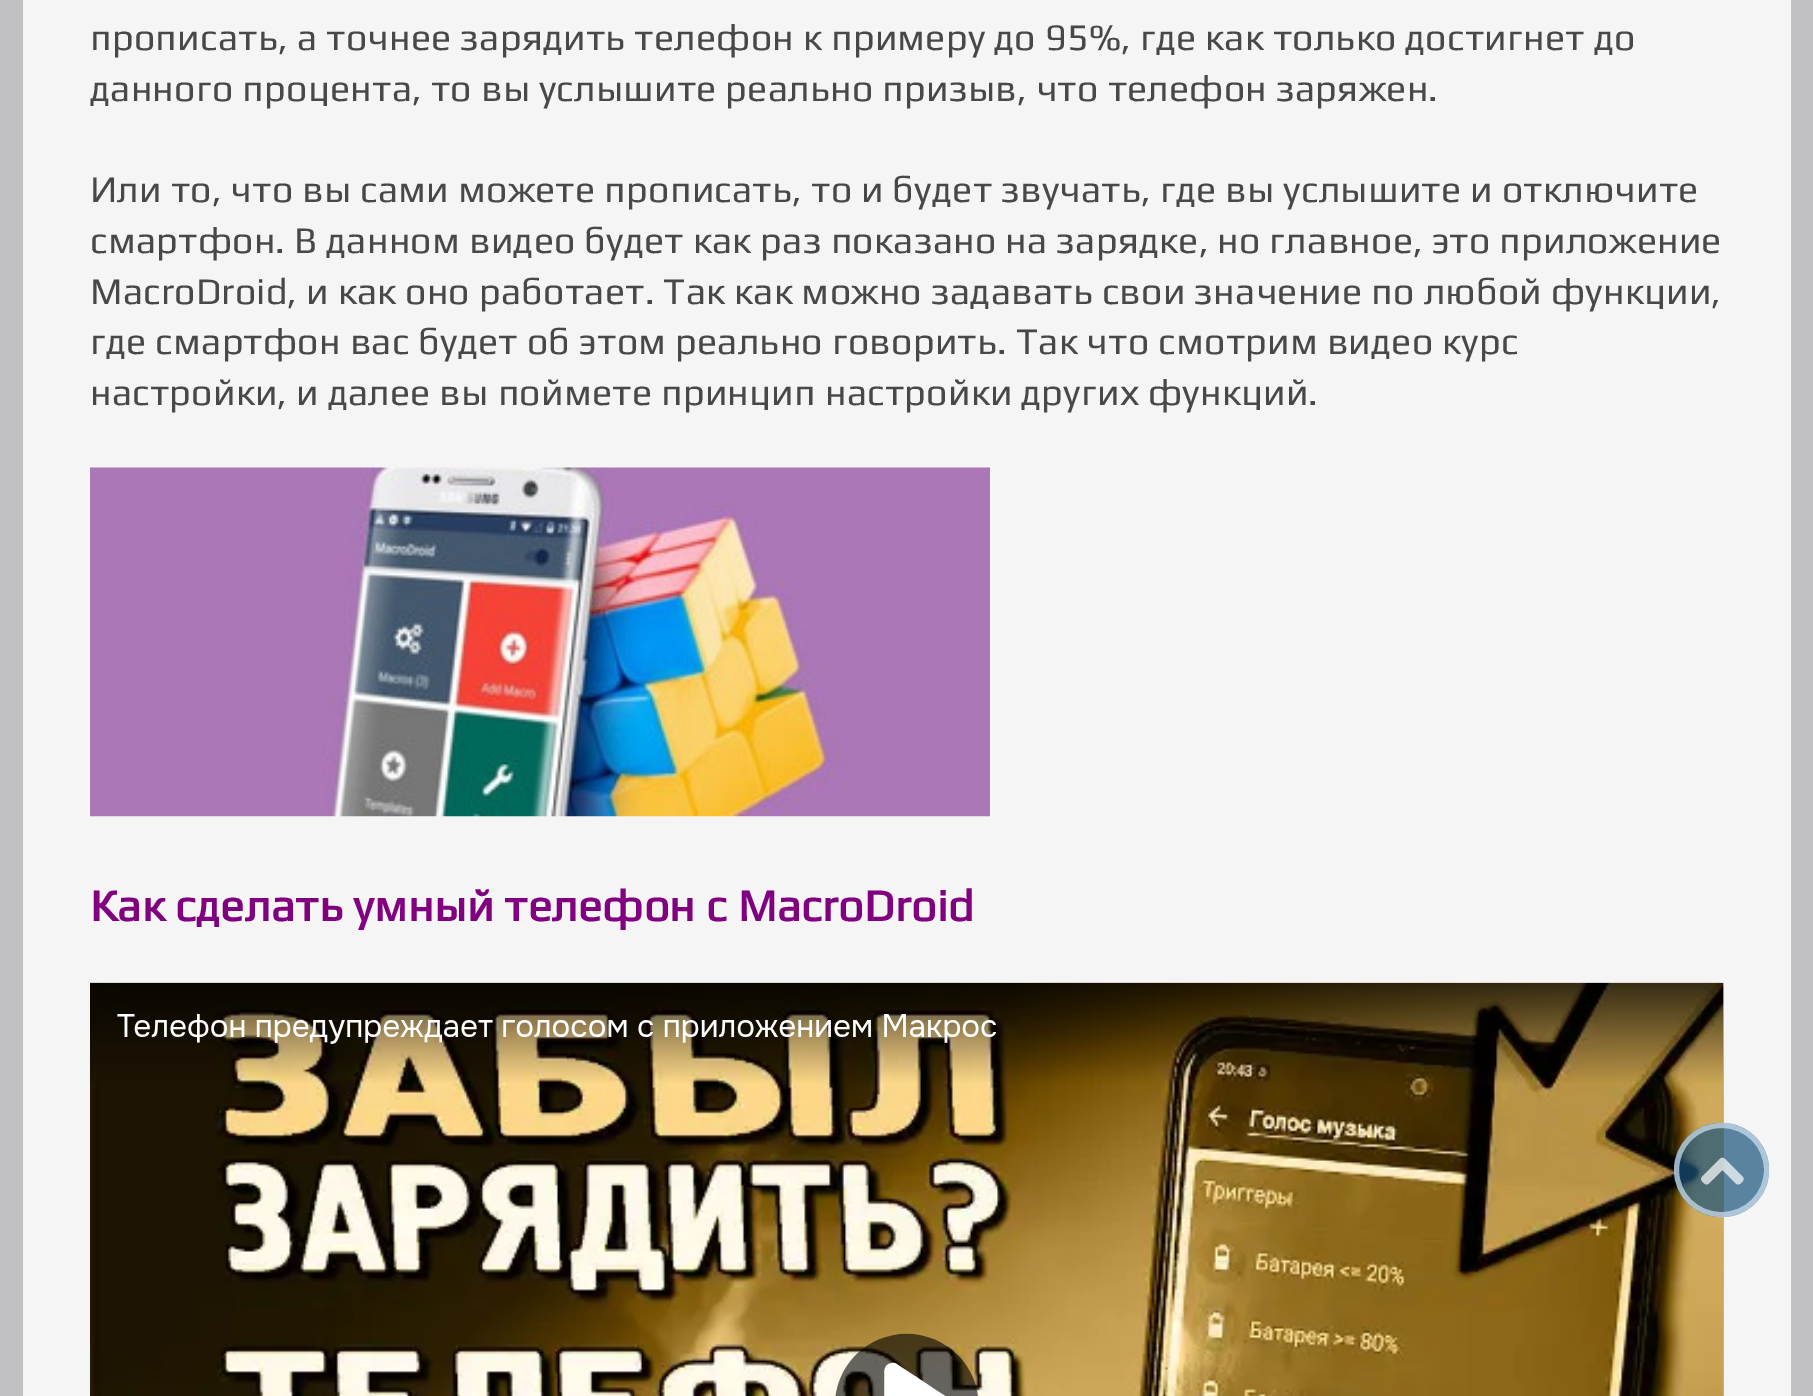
%!PS
<< /PageSize [1813 1396] /PageUsesTransparency true >> setpagedevice
/rgb { dup -16 bitshift 255 div exch dup -8 bitshift 255 and 255 div exch 255 and 255 div setrgbcolor } def
/font { [ exch dup neg 0 0 3 -1 roll 0 0 ] selectfont } def
/alpha { dup .setfillconstantalpha .setstrokeconstantalpha } def
/roundrect { 5 dict begin { /r /h /w /y /x } { exch def } forall
  x r add y moveto x w add y 2 copy h add r arct x w add y h add x 1 index r arct
  x y h add x y r arct x y 2 copy exch w add exch r arct closepath end } def
/picture { 5 dict begin { /h /w /y /x /name } { exch def } forall
  gsave x y translate w h scale
  w h 8 [w 0 0 h 0 0] name (r) file false 3 colorimage grestore end } def
0 .pushpdf14devicefilter
0 1396 translate 1 -1 scale
4 setmiterlimit
16#C1C1C3 rgb
0 0 1813 1396 rectfill
16#F5F5F5 rgb
23 0 1768 1396 rectfill
/Play-Regular 37.55 font
16#484848 rgb
90 50 moveto 0.23 0 (прописать, а точнее зарядить телефон к примеру до 95%, где как только достигнет до) ashow
90 101 moveto 0.23 0 (данного процента, то вы услышите реально призыв, что телефон заряжен.) ashow
90 202 moveto 0.23 0 (Или то, что вы сами можете прописать, то и будет звучать, где вы услышите и отключите) ashow
90 253 moveto 0.23 0 (смартфон. В данном видео будет как раз показано на зарядке, но главное, это приложение) ashow
90 304 moveto 0.23 0 (MacroDroid, и как оно работает. Так как можно задавать свои значение по любой функции,) ashow
90 354 moveto 0.23 0 (где смартфон вас будет об этом реально говорить. Так что смотрим видео курс) ashow
90 405 moveto 0.23 0 (настройки, и далее вы поймете принцип настройки других функций.) ashow
(pic1.raw) 90 467 900 350 picture
/Play-Bold 45 font
16#800080 rgb
90 921 moveto 0.23 0 (Как сделать умный телефон с MacroDroid) ashow
(pic2.raw) 90 982 1634 414 picture
0.7 alpha
16#17527B rgb
1674 1123 95 94 47 roundrect fill
1 alpha
(pic3.raw) 1701 1157 43 28 picture
0.7 alpha
16#D2E3F1 rgb
5 setlinewidth
1676.5 1125.5 90 89 44.5 roundrect stroke
.poppdf14devicefilter showpage
